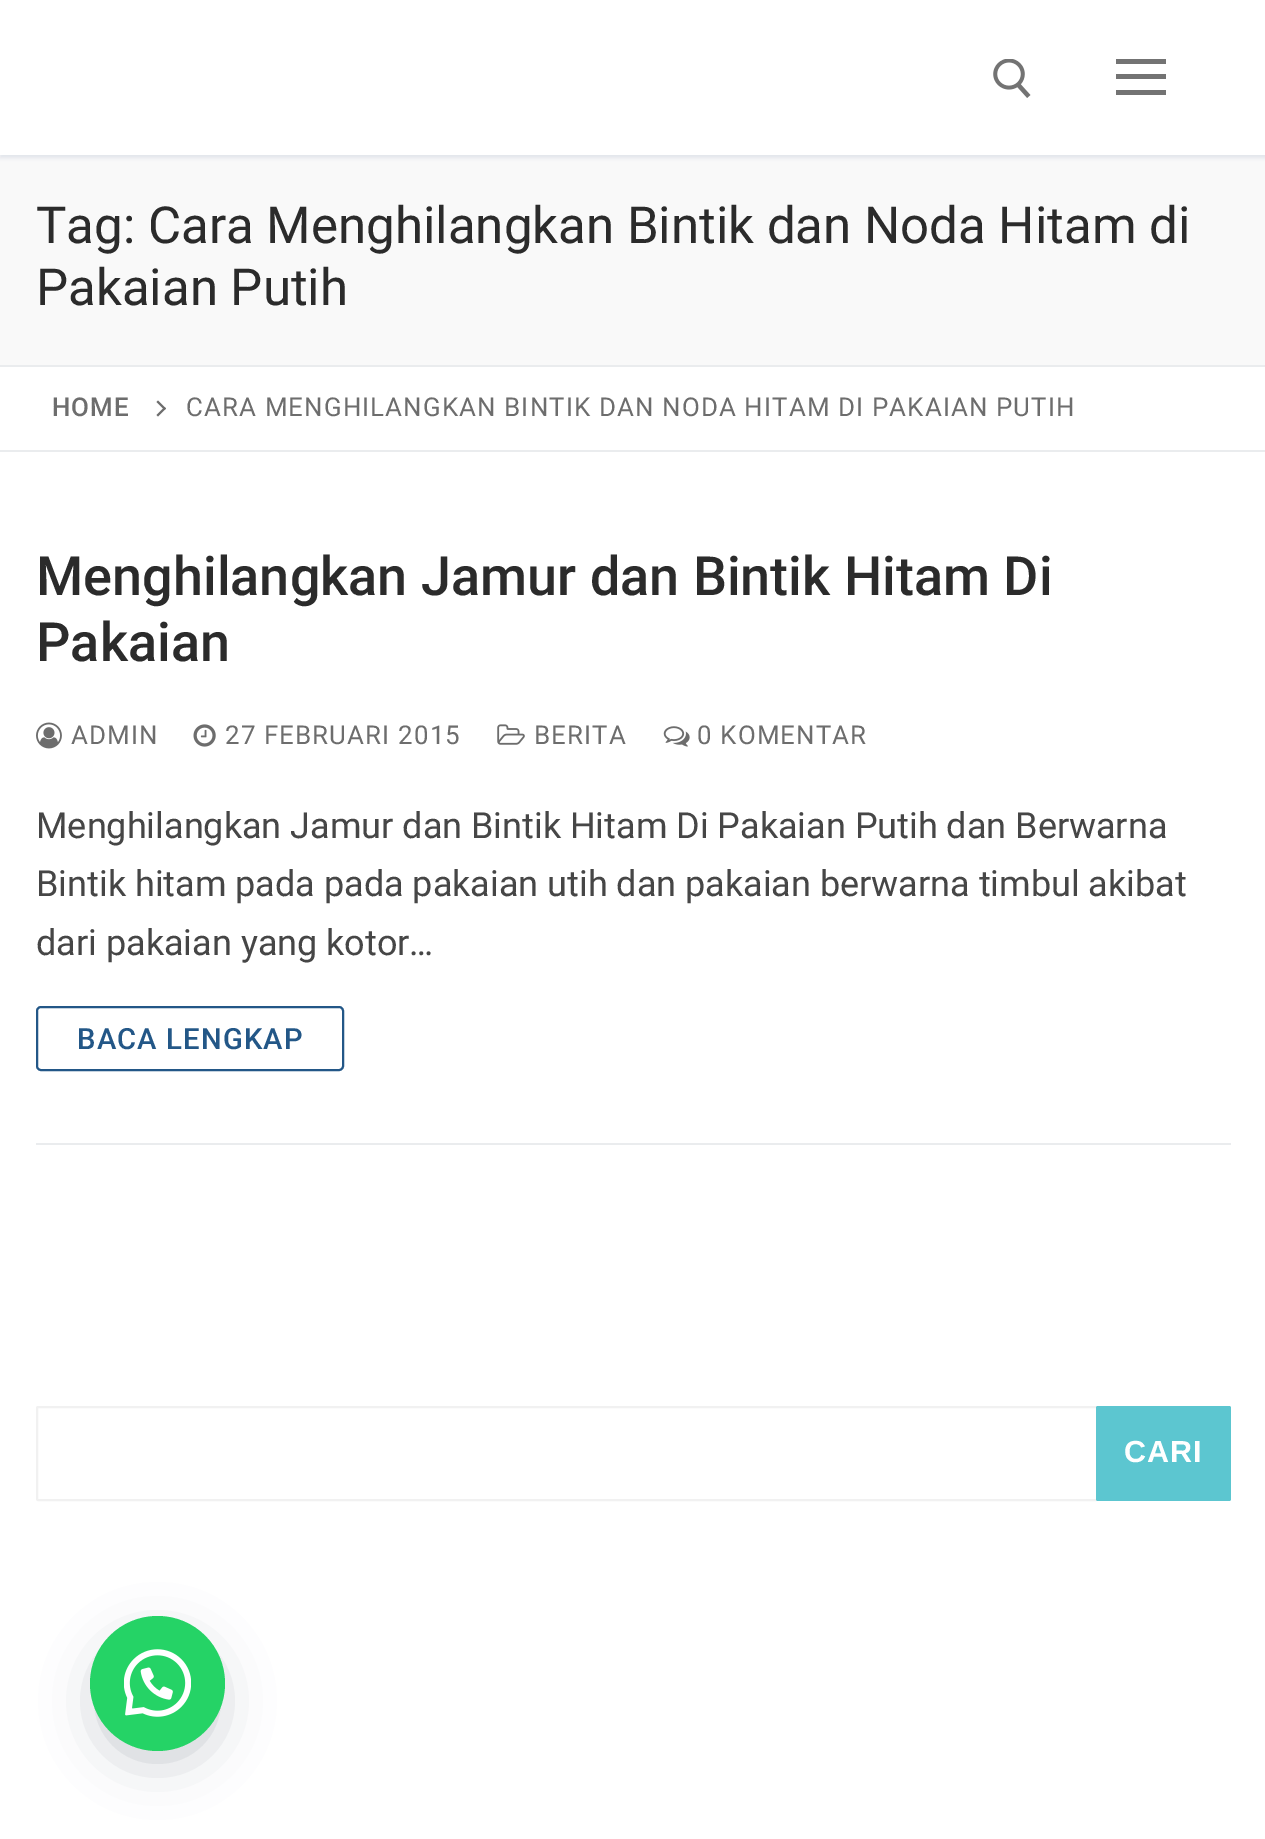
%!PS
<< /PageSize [1265 1839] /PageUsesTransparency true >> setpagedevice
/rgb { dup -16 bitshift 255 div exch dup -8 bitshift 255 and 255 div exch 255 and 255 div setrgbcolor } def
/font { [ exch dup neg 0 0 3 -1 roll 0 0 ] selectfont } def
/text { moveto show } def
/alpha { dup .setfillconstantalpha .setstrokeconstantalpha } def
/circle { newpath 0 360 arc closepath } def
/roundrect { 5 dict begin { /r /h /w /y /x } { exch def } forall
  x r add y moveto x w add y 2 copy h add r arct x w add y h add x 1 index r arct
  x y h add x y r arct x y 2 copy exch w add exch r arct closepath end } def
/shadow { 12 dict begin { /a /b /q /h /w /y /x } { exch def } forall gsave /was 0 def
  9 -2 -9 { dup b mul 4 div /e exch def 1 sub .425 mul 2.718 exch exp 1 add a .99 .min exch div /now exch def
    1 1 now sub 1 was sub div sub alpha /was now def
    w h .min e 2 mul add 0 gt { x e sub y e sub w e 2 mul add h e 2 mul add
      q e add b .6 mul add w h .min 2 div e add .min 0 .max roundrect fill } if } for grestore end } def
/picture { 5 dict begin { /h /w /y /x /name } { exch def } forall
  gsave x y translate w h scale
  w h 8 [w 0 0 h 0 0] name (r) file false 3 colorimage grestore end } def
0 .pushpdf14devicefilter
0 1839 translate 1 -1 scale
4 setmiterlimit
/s1 { /Roboto-Regular 51 font 16#2B2B2B rgb } def
/s2 { /Roboto-Medium 54 font 16#2B2B2B rgb } def
/s3 { /Roboto-Regular 36 font 16#464646 rgb } def
16#FFFFFF rgb
0 0 1265 1839 rectfill
16#F9F9F9 rgb
0 155 1265 210 rectfill
gsave
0 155 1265 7 rectclip
16#E1E5EA rgb
0 2 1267 156 0 2 1 shadow
grestore
(pic1.raw) 993 59 38 39 picture
16#737373 rgb
1116 74 50 5 rectfill
1116 59 50 5 rectfill
1116 90 50 5 rectfill
16#EAECEE rgb
0 365 1265 2 rectfill
s1
(Tag: Cara Menghilangkan Bintik dan Noda Hitam di) 36 243 text
(Pakaian Putih) 36 305 text
16#EAECEE rgb
0 450 1265 2 rectfill
/Roboto-Medium 25.9 font
16#6D6D6D rgb
52 416 moveto 1.12 0 (HOME) ashow
166 408.5 moveto 158 416.5 lineto 156.5 415 lineto 164.5 407 lineto closepath fill
166 408.5 moveto 164.5 410 lineto 156.5 402 lineto 158 400.5 lineto closepath fill
/Roboto-Regular 25.9 font
186 416 moveto 1.12 0 (CARA MENGHILANGKAN BINTIK DAN NODA HITAM DI PAKAIAN PUTIH) ashow
16#EAECEE rgb
36 1143 1195 2 rectfill
s2
(Menghilangkan Jamur dan Bintik Hitam Di) 36 595 text
(Pakaian) 36 661 text
(pic2.raw) 36 722 26 27 picture
/Roboto-Regular 25.9 font
16#6D6D6D rgb
71 744 moveto 1.12 0 (ADMIN) ashow
(pic3.raw) 193 724 23 23 picture
225 744 moveto 1.12 0 (27 FEBRUARI 2015) ashow
(pic4.raw) 497 724 28 21 picture
534 744 moveto 1.12 0 (BERITA) ashow
(pic5.raw) 663 726 27 21 picture
697 744 moveto 1.12 0 (0 KOMENTAR) ashow
s3
(Menghilangkan Jamur dan Bintik Hitam Di Pakaian Putih dan Berwarna) 36 838 text
(Bintik hitam pada pada pakaian utih dan pakaian berwarna timbul akibat) 36 896 text
(dari pakaian yang kotor…) 36 955 text
16#235787 rgb
2 setlinewidth
37 1007 306 63 4 roundrect stroke
/Roboto-Medium 29.25 font
77 1049 moveto 1.12 0 (BACA LENGKAP) ashow
16#F1F1F1 rgb
37 1407 1060 93 1 roundrect stroke
16#5CC6D0 rgb
1096 1406 135 95 2 roundrect fill
/LiberationSans-Bold 30.5 font
16#FFFFFF rgb
1124 1462 moveto 1.12 0 (CARI) ashow
16#2D3E4F rgb
101 1645 113 112 56 28 0.3 shadow
16#25D366 rgb
157.5 1683.5 67.5 circle fill
(pic6.raw) 124 1649 67 68 picture
.poppdf14devicefilter showpage
